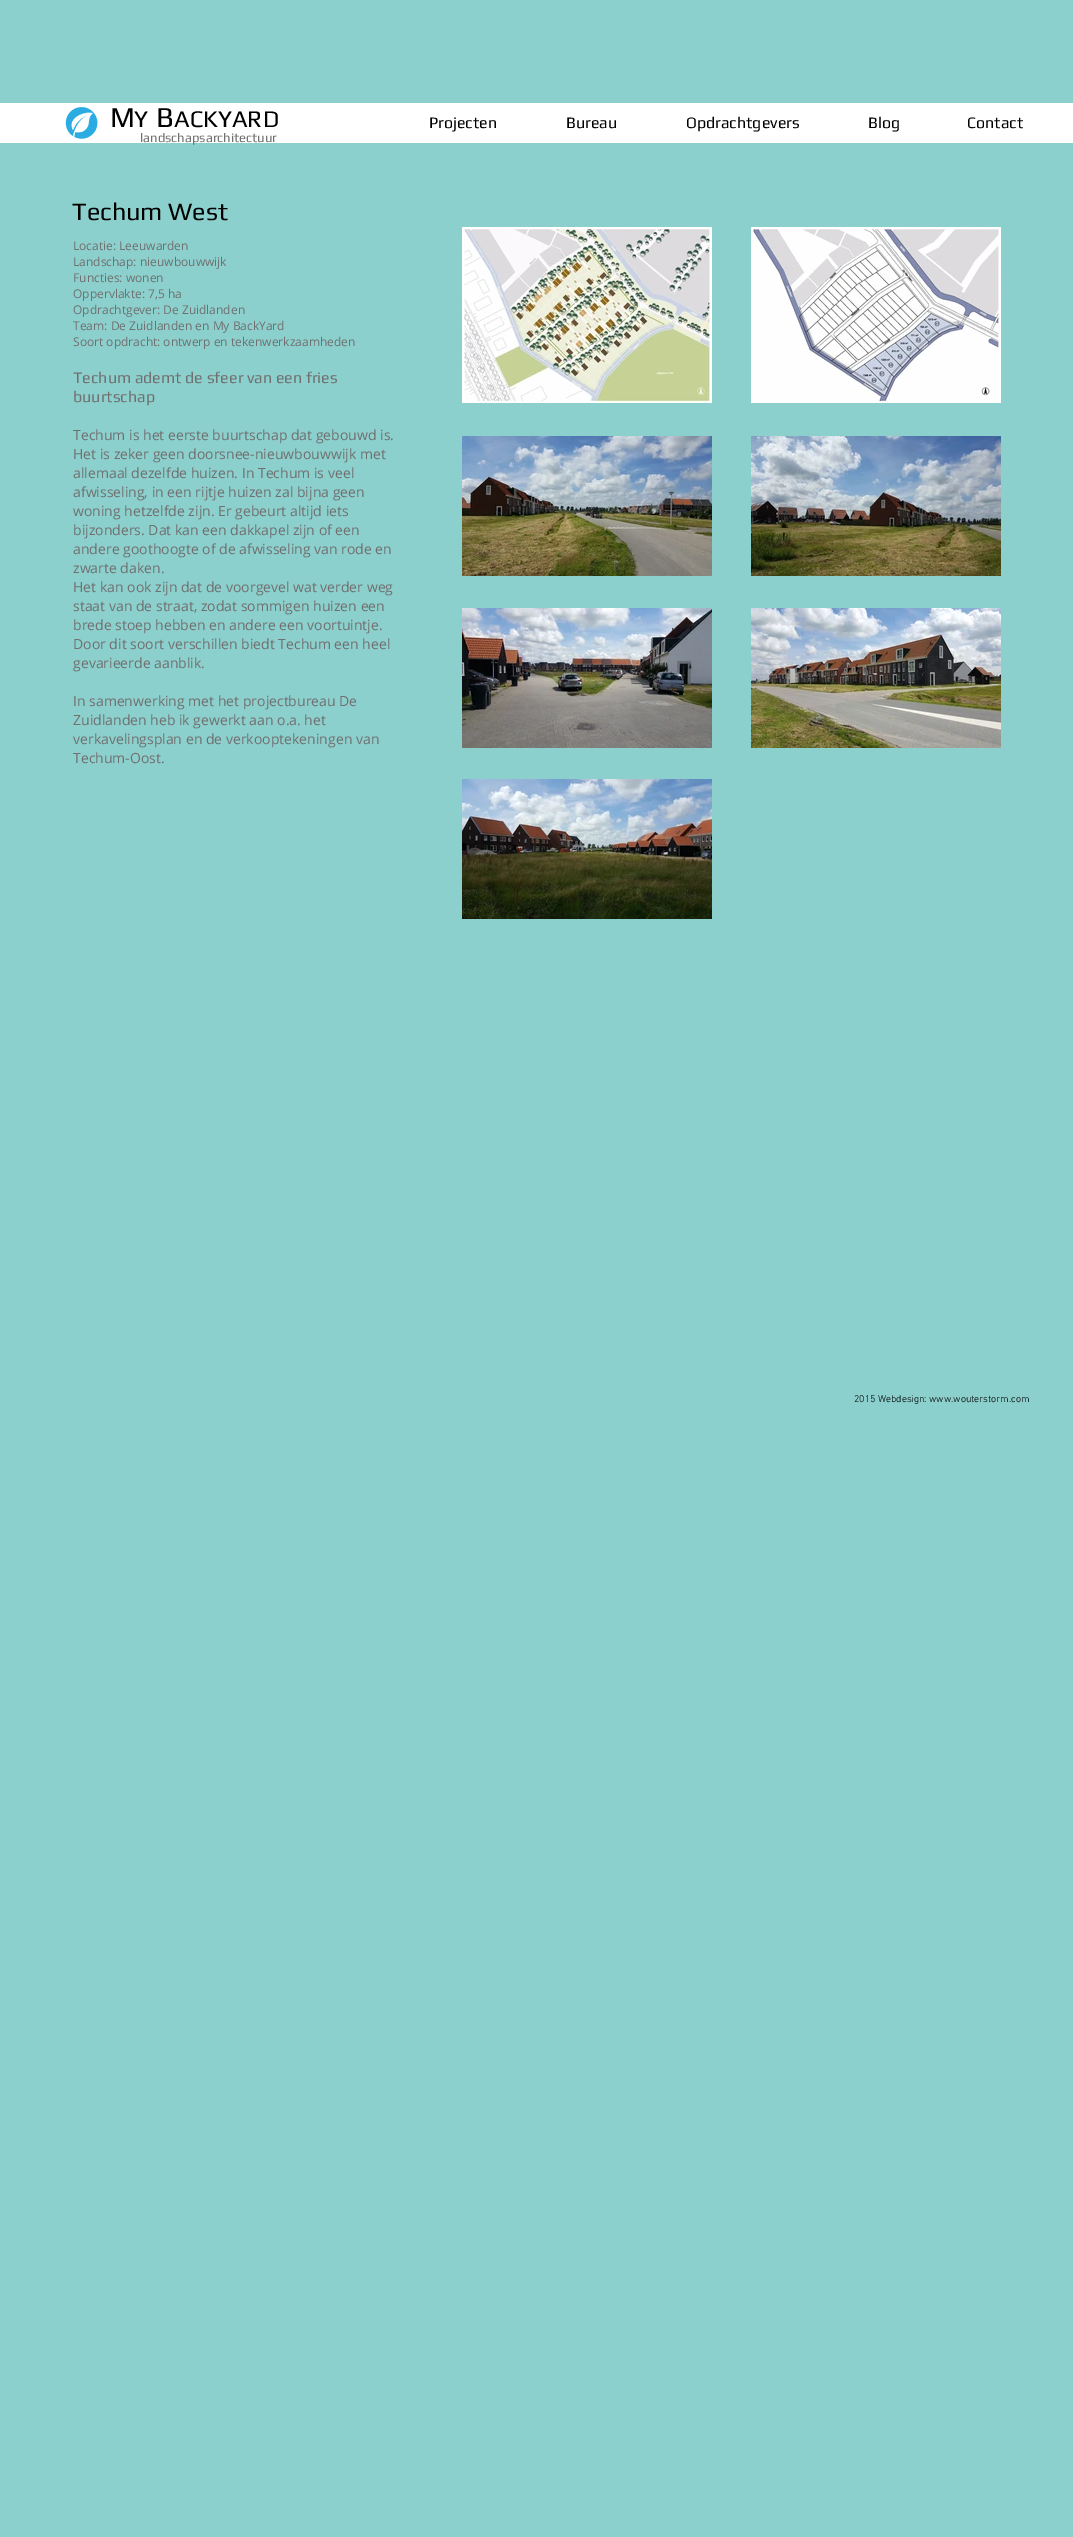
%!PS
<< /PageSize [1073 2537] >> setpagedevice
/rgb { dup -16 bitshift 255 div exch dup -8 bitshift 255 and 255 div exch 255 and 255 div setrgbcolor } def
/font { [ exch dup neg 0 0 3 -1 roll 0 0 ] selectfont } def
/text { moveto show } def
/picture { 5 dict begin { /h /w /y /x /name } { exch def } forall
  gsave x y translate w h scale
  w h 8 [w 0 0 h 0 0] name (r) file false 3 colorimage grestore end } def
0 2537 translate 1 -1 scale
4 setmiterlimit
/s1 { /Play-Regular 29 font 16#000000 rgb } def
/s2 { /Play-Regular 24 font 16#000000 rgb } def
/s3 { /Play-Regular 16 font 16#000000 rgb } def
/s4 { /Play-Regular 13 font 16#717070 rgb } def
/s5 { /Play-Regular 25 font 16#000000 rgb } def
/s6 { /OpenSans-Regular 12 font 16#717070 rgb } def
/s7 { /Play-Regular 16 font 16#717070 rgb } def
/s8 { /OpenSans-Regular 14 font 16#717070 rgb } def
/s9 { /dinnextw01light-Light 10 font 16#000000 rgb } def
16#8BD0CD rgb
0 0 1073 2537 rectfill
16#FFFFFF rgb
0 103 1073 40 rectfill
s1
(M) 110 127 text
s2
(Y) 134 127 text
s1
(B) 156 127 text
s2
(ACKYARD) 174 127 text
(pic1.raw) 65 107 33 32 picture
s3
(Projecten) 429 128 text
(Bureau) 566 128 text
(Opdrachtgevers) 686 128 text
(Blog) 868 128 text
(Contact) 967 128 text
s4
(landschapsarchitectuur) 140 142 text
s5
(Techum West) 72 220 text
s6
(Locatie: Leeuwarden) 73 250 text
(Landschap: nieuwbouwwijk) 73 266 text
(Functies: wonen) 73 282 text
(Oppervlakte: 7,5 ha) 73 298 text
(Opdrachtgever: De Zuidlanden) 73 314 text
(Team: De Zuidlanden en My BackYard) 73 330 text
(Soort opdracht: ontwerp en tekenwerkzaamheden) 73 346 text
s7
(Techum ademt de sfeer van een fries) 73 383 text
(buurtschap) 73 402 text
s8
(Techum is het eerste buurtschap dat gebouwd is.) 73 440 text
(Het is zeker geen doorsnee-nieuwbouwwijk met) 73 459 text
(allemaal dezelfde huizen. In Techum is veel) 73 478 text
(afwisseling, in een rijtje huizen zal bijna geen) 73 497 text
(woning hetzelfde zijn. Er gebeurt altijd iets) 73 516 text
(bijzonders. Dat kan een dakkapel zijn of een) 73 535 text
(andere goothoogte of de afwisseling van rode en) 73 554 text
(zwarte daken.) 73 573 text
(Het kan ook zijn dat de voorgevel wat verder weg) 73 592 text
(staat van de straat, zodat sommigen huizen een) 73 611 text
(brede stoep hebben en andere een voortuintje.) 73 630 text
(Door dit soort verschillen biedt Techum een heel) 73 649 text
(gevarieerde aanblik.) 73 668 text
(In samenwerking met het projectbureau De) 73 706 text
(Zuidlanden heb ik gewerkt aan o.a. het) 73 725 text
(verkavelingsplan en de verkooptekeningen van) 73 744 text
(Techum-Oost.) 73 763 text
(pic2.raw) 462 227 250 176 picture
(pic3.raw) 751 227 250 176 picture
(pic4.raw) 462 436 250 140 picture
(pic5.raw) 751 436 250 140 picture
(pic6.raw) 462 608 250 140 picture
(pic7.raw) 751 608 250 140 picture
(pic8.raw) 462 779 250 140 picture
s9
(2015 Webdesign: www.wouterstorm.com) 854 1402 text
showpage
